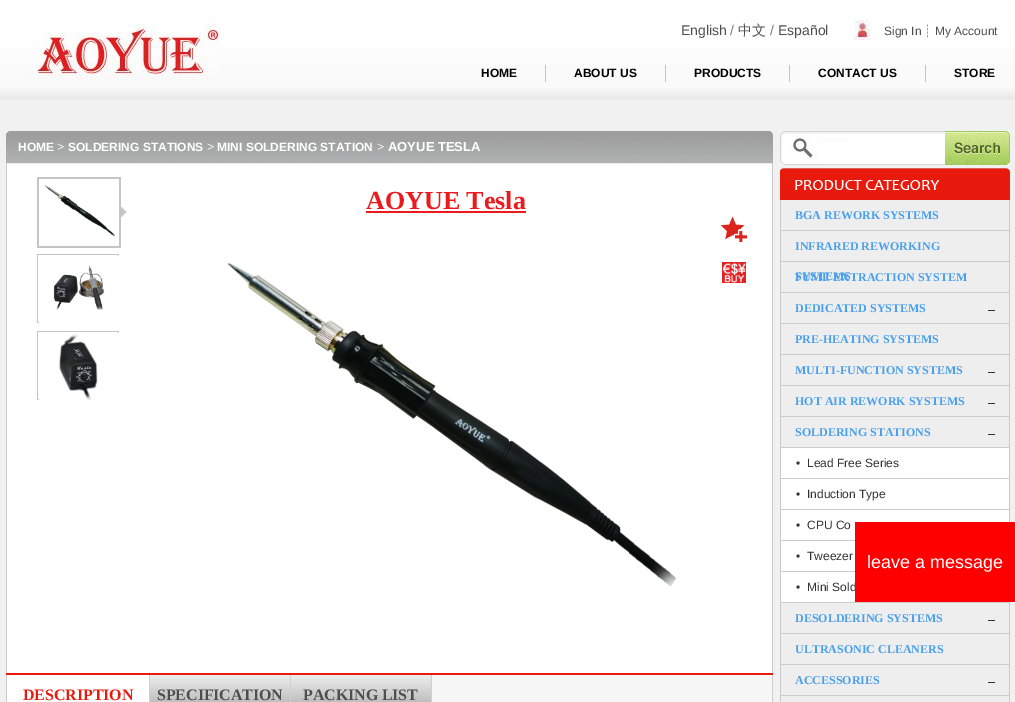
%!PS
<< /PageSize [1015 702] >> setpagedevice
/rgb { dup -16 bitshift 255 div exch dup -8 bitshift 255 and 255 div exch 255 and 255 div setrgbcolor } def
/font { [ exch dup neg 0 0 3 -1 roll 0 0 ] selectfont } def
/text { moveto show } def
/picture { 5 dict begin { /h /w /y /x /name } { exch def } forall
  gsave x y translate w h scale
  w h 8 [w 0 0 h 0 0] name (r) file false 3 colorimage grestore end } def
0 702 translate 1 -1 scale
4 setmiterlimit
/s1 { /LiberationSans-Regular 14 font 16#4E4E4E rgb } def
/s2 { /LiberationSans-Regular 14 font 16#7B7B7B rgb } def
/s3 { /WenQuanYiZenHei-Medium 14 font 16#4E4E4E rgb } def
/s4 { /LiberationSans-Regular 12 font 16#4E4E4E rgb } def
/s5 { /DejaVuSans-Regular 12 font 16#7B7B7B rgb } def
/s6 { /LiberationSans-Bold 12 font 16#000000 rgb } def
/s7 { /LiberationSans-Bold 12 font 16#FFFFFF rgb } def
/s8 { /LiberationSerif-Bold 13 font 16#FFFFFF rgb } def
/s9 { /LiberationSans-Bold 13 font 16#FFFFFF rgb } def
/s10 { /LiberationSerif-Bold 26 font 16#EB1A1D rgb } def
/s11 { /LiberationSerif-Bold 12 font 16#4AA0ED rgb } def
/s12 { /LiberationSans-Regular 12 font 16#333333 rgb } def
/s13 { /LiberationSans-Regular 18 font 16#FFFFFF rgb } def
16#F1F1F1 rgb
0 0 1015 702 rectfill
(pic1.raw) 0 0 1015 100 picture
(pic2.raw) 28 17 192 64 picture
s1
(English) 681 35 text
s2
(/) 730 35 text
s3
(中文) 738 35 text
s2
(/) 770 35 text
s1
(Español) 778 35 text
(pic3.raw) 855 20 15 20 picture
s4
(Sign In) 884 35 text
s5
(┊) 924 35 text
s4
(My Account) 935 35 text
16#C4C3C3 rgb
545 65 1 17 rectfill
s6
(HOME) 481 77 text
16#C4C3C3 rgb
665 65 1 17 rectfill
s6
(ABOUT US) 574 77 text
16#C4C3C3 rgb
789 65 1 17 rectfill
s6
(PRODUCTS) 694 77 text
16#C4C3C3 rgb
925 65 1 17 rectfill
s6
(CONTACT US) 818 77 text
(STORE) 954 77 text
(pic4.raw) 6 131 767 32 picture
s7
(HOME) 18 151 text
s8
(>) 57 151 text
s7
(SOLDERING STATIONS) 68 151 text
s8
(>) 207 151 text
s7
(MINI SOLDERING STATION) 217 151 text
s8
(>) 377 151 text
s9
(AOYUE TESLA) 388 151 text
7 164 765 509 rectfill
16#EEEEEE rgb
6 163 767 1 rectfill
16#C9C9C9 rgb
772 163 1 510 rectfill
6 163 1 510 rectfill
(pic5.raw) 37 177 90 71 picture
(pic6.raw) 37 254 82 69 picture
(pic7.raw) 37 331 82 69 picture
(pic8.raw) 227 263 449 324 picture
s10
(AOYUE Tesla) 366 209 text
366 211 160 2 rectfill
(pic9.raw) 720 216 28 26 picture
(pic10.raw) 722 262 24 21 picture
16#E81A0D rgb
6 673 767 2 rectfill
16#F7F7F7 rgb
432 675 340 27 rectfill
16#CFCFCF rgb
772 675 1 27 rectfill
16#CCCCCC rgb
6 675 1 27 rectfill
16#FFFFFF rgb
7 675 142 27 rectfill
16#CFCFCF rgb
149 675 1 27 rectfill
/LiberationSerif-Bold 16 font
16#E81A0D rgb
23 700 moveto -0.1 0 (DESCRIPTION) ashow
gsave 150 675 moveto 290 675 lineto 290 702 lineto 150 702 lineto closepath clip newpath
<< /ShadingType 2 /ColorSpace /DeviceRGB /Coords [220 675 220 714] /Extend [true true] /Function << /FunctionType 2 /Domain [0 1] /C0 [0.929 0.929 0.929] /C1 [0.671 0.671 0.671] /N 1 >> >> shfill grestore
16#CFCFCF rgb
290 675 1 27 rectfill
16#4E4E4E rgb
157 700 moveto -0.1 0 (SPECIFICATION) ashow
gsave 291 675 moveto 431 675 lineto 431 702 lineto 291 702 lineto closepath clip newpath
<< /ShadingType 2 /ColorSpace /DeviceRGB /Coords [361 675 361 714] /Extend [true true] /Function << /FunctionType 2 /Domain [0 1] /C0 [0.929 0.929 0.929] /C1 [0.671 0.671 0.671] /N 1 >> >> shfill grestore
16#CFCFCF rgb
431 675 1 27 rectfill
16#4E4E4E rgb
303 700 moveto -0.1 0 (PACKING LIST) ashow
(pic11.raw) 780 131 165 34 picture
(pic12.raw) 945 131 65 34 picture
16#CACACA rgb
1009 199 1 503 rectfill
780 199 1 503 rectfill
(pic13.raw) 780 168 230 32 picture
16#FFFFFF rgb
781 448 228 154 rectfill
16#EEEEEE rgb
781 200 228 30 rectfill
s11
(BGA REWORK SYSTEMS) 795 219 text
16#EEEEEE rgb
781 231 228 30 rectfill
16#CCCCCC rgb
781 230 228 1 rectfill
s11
(INFRARED REWORKING) 795 250 text
16#EEEEEE rgb
781 262 228 30 rectfill
s11
(SYSTEMS) 795 280 text
16#CCCCCC rgb
781 261 228 1 rectfill
s11
(FUME EXTRACTION SYSTEM) 795 281 text
16#EEEEEE rgb
781 293 228 30 rectfill
16#CCCCCC rgb
781 292 228 1 rectfill
s11
(DEDICATED SYSTEMS) 795 312 text
16#333333 rgb
988 310 7 1 rectfill
16#EEEEEE rgb
781 324 228 30 rectfill
16#CCCCCC rgb
781 323 228 1 rectfill
s11
(PRE-HEATING SYSTEMS) 795 343 text
16#EEEEEE rgb
781 355 228 30 rectfill
16#CCCCCC rgb
781 354 228 1 rectfill
s11
(MULTI-FUNCTION SYSTEMS) 795 374 text
16#333333 rgb
988 372 7 1 rectfill
16#EEEEEE rgb
781 386 228 30 rectfill
16#CCCCCC rgb
781 385 228 1 rectfill
s11
(HOT AIR REWORK SYSTEMS) 795 405 text
16#333333 rgb
988 403 7 1 rectfill
16#EEEEEE rgb
781 417 228 30 rectfill
16#CCCCCC rgb
781 416 228 1 rectfill
781 447 228 1 rectfill
s11
(SOLDERING STATIONS) 795 436 text
16#333333 rgb
988 434 7 1 rectfill
16#CCCCCC rgb
781 478 228 1 rectfill
s12
(•  Lead Free Series) 796 467 text
16#CCCCCC rgb
781 509 228 1 rectfill
s12
(•  Induction Type) 796 498 text
16#CCCCCC rgb
781 540 74 1 rectfill
s12
(•  CPU Co) 796 529 text
16#CCCCCC rgb
781 571 74 1 rectfill
s12
(•  Tweezer) 796 560 text
(•  Mini Sold) 796 591 text
16#EEEEEE rgb
781 603 228 30 rectfill
16#CCCCCC rgb
781 602 228 1 rectfill
s11
(DESOLDERING SYSTEMS) 795 622 text
16#333333 rgb
988 620 7 1 rectfill
16#EEEEEE rgb
781 634 228 30 rectfill
16#CCCCCC rgb
781 633 228 1 rectfill
s11
(ULTRASONIC CLEANERS) 795 653 text
16#EEEEEE rgb
781 665 228 30 rectfill
16#CCCCCC rgb
781 664 228 1 rectfill
s11
(ACCESSORIES) 795 684 text
16#333333 rgb
988 682 7 1 rectfill
16#EEEEEE rgb
781 696 228 6 rectfill
16#CCCCCC rgb
781 695 228 1 rectfill
16#FF0000 rgb
855 522 160 80 rectfill
s13
(leave a message) 867 568 text
showpage
